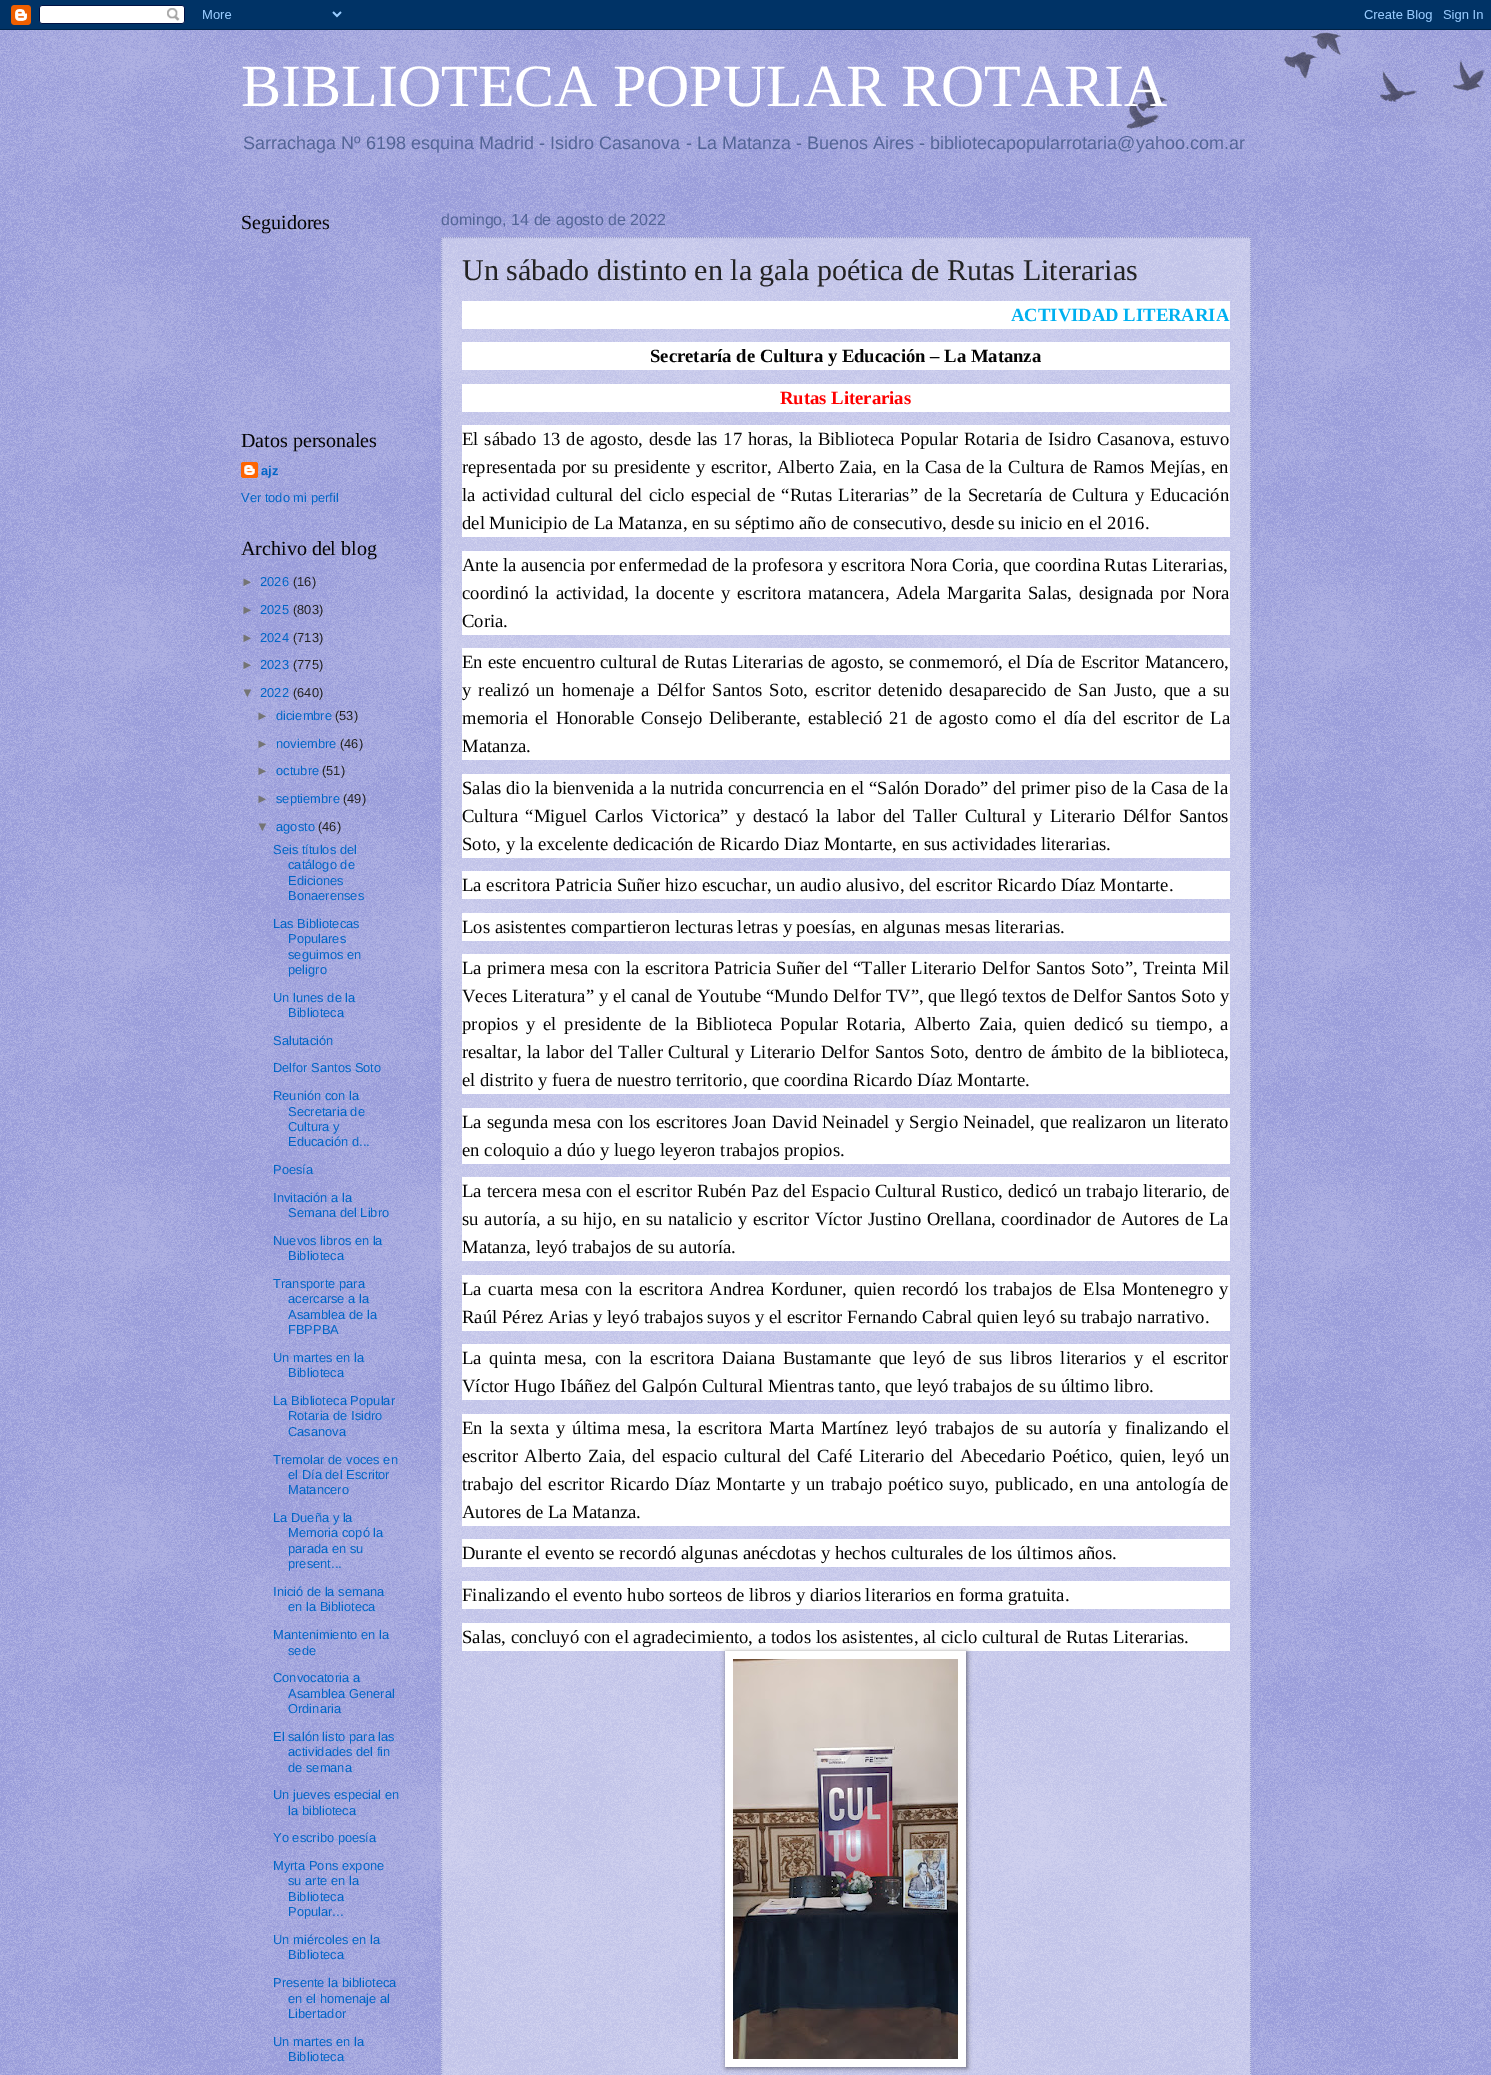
%!PS
<< /PageSize [1491 2075] /PageUsesTransparency true >> setpagedevice
/rgb { dup -16 bitshift 255 div exch dup -8 bitshift 255 and 255 div exch 255 and 255 div setrgbcolor } def
/font { [ exch dup neg 0 0 3 -1 roll 0 0 ] selectfont } def
/text { moveto show } def
/alpha { dup .setfillconstantalpha .setstrokeconstantalpha } def
/roundrect { 5 dict begin { /r /h /w /y /x } { exch def } forall
  x r add y moveto x w add y 2 copy h add r arct x w add y h add x 1 index r arct
  x y h add x y r arct x y 2 copy exch w add exch r arct closepath end } def
/shadow { 12 dict begin { /a /b /q /h /w /y /x } { exch def } forall gsave /was 0 def
  9 -2 -9 { dup b mul 4 div /e exch def 1 sub .425 mul 2.718 exch exp 1 add a .99 .min exch div /now exch def
    1 1 now sub 1 was sub div sub alpha /was now def
    w h .min e 2 mul add 0 gt { x e sub y e sub w e 2 mul add h e 2 mul add
      q e add b .6 mul add w h .min 2 div e add .min 0 .max roundrect fill } if } for grestore end } def
/picture { 5 dict begin { /h /w /y /x /name } { exch def } forall
  gsave x y translate w h scale
  w h 8 [w 0 0 h 0 0] name (r) file false 3 colorimage grestore end } def
0 .pushpdf14devicefilter
0 2075 translate 1 -1 scale
4 setmiterlimit
/s1 { /LiberationSerif-Regular 60 font 16#FFFFFF rgb } def
/s2 { /LiberationSans-Regular 18.03 font 16#536496 rgb } def
/s3 { /LiberationSerif-Regular 20 font 16#050505 rgb } def
/s4 { /LiberationSans-Bold 12.9 font 16#0064C6 rgb } def
/s5 { /LiberationSans-Regular 12.9 font 16#0064C6 rgb } def
/s6 { /LiberationSans-Regular 12.9 font 16#747474 rgb } def
/s7 { /LiberationSans-Regular 12.9 font 16#232323 rgb } def
/s8 { /LiberationSans-Regular 16 font 16#536496 rgb } def
/s9 { /LiberationSerif-Regular 30 font 16#232323 rgb } def
/s10 { /LiberationSerif-Bold 18.65 font 16#00B0F0 rgb } def
/s11 { /LiberationSerif-Bold 18.65 font 16#050505 rgb } def
/s12 { /LiberationSerif-Bold 18.65 font 16#FF0000 rgb } def
/s13 { /LiberationSerif-Regular 18.65 font 16#050505 rgb } def
16#5156BF rgb
0 0 1491 2075 rectfill
(pic1.raw) 0 30 1491 2045 picture
(pic2.raw) 0 0 1491 30 picture
(pic5.raw) 1126 32 359 97 picture
s1
(BIBLIOTECA POPULAR ROTARIA) 241 106 text
s2
(Sarrachaga Nº 6198 esquina Madrid - Isidro Casanova - La Matanza - Buenos Aires - bibliotecapopularrotaria@yahoo.com.ar) 243 149 text
s3
(Seguidores) 241 229 text
(Datos personales) 241 447 text
(pic3.raw) 241 462 17 16 picture
s4
(ajz) 261 475 text
s5
(Ver todo mi perfil) 241 502 text
s3
(Archivo del blog) 241 555 text
s6
(►) 241 586 text
s5
(2026) 260 586 text
s7
(\(16\)) 293 586 text
s6
(►) 241 614 text
s5
(2025) 260 614 text
s7
(\(803\)) 293 614 text
s6
(►) 241 642 text
s5
(2024) 260 642 text
s7
(\(713\)) 293 642 text
s6
(►) 241 669 text
s5
(2023) 260 669 text
s7
(\(775\)) 293 669 text
s6
(▼) 241 697 text
s5
(2022) 260 697 text
s7
(\(640\)) 293 697 text
s6
(►) 256 720 text
s5
(diciembre) 276 720 text
s7
(\(53\)) 335 720 text
s6
(►) 256 748 text
s5
(noviembre) 276 748 text
s7
(\(46\)) 340 748 text
s6
(►) 256 775 text
s5
(octubre) 276 775 text
s7
(\(51\)) 322 775 text
s6
(►) 256 803 text
s5
(septiembre) 276 803 text
s7
(\(49\)) 343 803 text
s6
(▼) 256 831 text
s5
(agosto) 276 831 text
s7
(\(46\)) 318 831 text
s5
(Seis títulos del) 273 854 text
(catálogo de) 288 869 text
(Ediciones) 288 885 text
(Bonaerenses) 288 900 text
(Las Bibliotecas) 273 928 text
(Populares) 288 943 text
(seguimos en) 288 959 text
(peligro) 288 974 text
(Un lunes de la) 273 1002 text
(Biblioteca) 288 1017 text
(Salutación) 273 1045 text
(Delfor Santos Soto) 273 1072 text
(Reunión con la) 273 1100 text
(Secretaria de) 288 1116 text
(Cultura y) 288 1131 text
(Educación d...) 288 1146 text
(Poesía) 273 1174 text
(Invitación a la) 273 1202 text
(Semana del Libro) 288 1217 text
(Nuevos libros en la) 273 1245 text
(Biblioteca) 288 1260 text
(Transporte para) 273 1288 text
(acercarse a la) 288 1303 text
(Asamblea de la) 288 1319 text
(FBPPBA) 288 1334 text
(Un martes en la) 273 1362 text
(Biblioteca) 288 1377 text
(La Biblioteca Popular) 273 1405 text
(Rotaria de Isidro) 288 1420 text
(Casanova) 288 1436 text
(Tremolar de voces en) 273 1464 text
(el Día del Escritor) 288 1479 text
(Matancero) 288 1494 text
(La Dueña y la) 273 1522 text
(Memoria copó la) 288 1537 text
(parada en su) 288 1553 text
(present...) 288 1568 text
(Inició de la semana) 273 1596 text
(en la Biblioteca) 288 1611 text
(Mantenimiento en la) 273 1639 text
(sede) 288 1655 text
(Convocatoria a) 273 1682 text
(Asamblea General) 288 1698 text
(Ordinaria) 288 1713 text
(El salón listo para las) 273 1741 text
(actividades del fin) 288 1756 text
(de semana) 288 1772 text
(Un jueves especial en) 273 1799 text
(la biblioteca) 288 1815 text
(Yo escribo poesía) 273 1842 text
(Myrta Pons expone) 273 1870 text
(su arte en la) 288 1885 text
(Biblioteca) 288 1901 text
(Popular...) 288 1916 text
(Un miércoles en la) 273 1944 text
(Biblioteca) 288 1959 text
(Presente la biblioteca) 273 1987 text
(en el homenaje al) 288 2003 text
(Libertador) 288 2018 text
(Un martes en la) 273 2046 text
(Biblioteca) 288 2061 text
s8
(domingo, 14 de agosto de 2022) 441 225 text
0.4 alpha
16#FFFFFF rgb
441 237 810 1838 rectfill
1 alpha
16#979CCB rgb
[1 1] 0 setdash
441 237.5 moveto 1251 237.5 lineto stroke
1250.5 237 moveto 1250.5 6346 lineto stroke
441.5 237 moveto 441.5 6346 lineto stroke
s9
(Un sábado distinto en la gala poética de Rutas Literarias) 462 280 text
16#FFFFFF rgb
462 301 768 28 rectfill
s10
(ACTIVIDAD LITERARIA) 1011 321 text
16#FFFFFF rgb
462 342 768 28 rectfill
s11
(Secretaría de Cultura y Educación – La Matanza) 650 362 text
16#FFFFFF rgb
462 384 768 28 rectfill
s12
(Rutas Literarias) 780 404 text
16#FFFFFF rgb
462 425 768 112 rectfill
/LiberationSerif-Regular 18.65 font
16#050505 rgb
462 445 moveto 1.1 0 32 (El sábado 13 de agosto, desde las 17 horas, la Biblioteca Popular Rotaria de Isidro Casanova, estuvo) widthshow
462 473 moveto 0.8 0 32 (representada por su presidente y escritor, Alberto Zaia, en la Casa de la Cultura de Ramos Mejías, en) widthshow
462 501 moveto 1.6 0 32 (la actividad cultural del ciclo especial de “Rutas Literarias” de la Secretaría de Cultura y Educación) widthshow
(del Municipio de La Matanza, en su séptimo año de consecutivo, desde su inicio en el 2016.) 462 529 text
16#FFFFFF rgb
462 551 768 84 rectfill
s13
(Ante la ausencia por enfermedad de la profesora y escritora Nora Coria, que coordina Rutas Literarias,) 462 571 text
462 599 moveto 2.25 0 32 (coordinó la actividad, la docente y escritora matancera,) widthshow
896 599 moveto 2.25 0 32 (Adela Margarita Salas,) widthshow
1079 599 moveto 2.25 0 32 (designada por Nora) widthshow
(Coria.) 462 627 text
16#FFFFFF rgb
462 648 768 112 rectfill
16#050505 rgb
462 668 moveto 0.25 0 32 (En este encuentro cultural de Rutas Literarias de agosto, se conmemoró, el Día de Escritor Matancero,) widthshow
462 696 moveto 2.4 0 32 (y realizó un homenaje a Délfor Santos Soto, escritor detenido desaparecido de San Justo, que a su) widthshow
462 724 moveto 2.25 0 32 (memoria el Honorable Consejo Deliberante, estableció 21 de agosto como el día del escritor de La) widthshow
(Matanza.) 462 752 text
16#FFFFFF rgb
462 774 768 84 rectfill
s13
(Salas dio la bienvenida a la nutrida concurrencia en el “Salón Dorado” del primer piso de la Casa de la) 462 794 text
462 822 moveto 2.75 0 32 (Cultura “Miguel Carlos Victorica” y destacó la labor del Taller Cultural y Literario Délfor Santos) widthshow
(Soto, y la excelente dedicación de Ricardo Diaz Montarte, en sus actividades literarias.) 462 850 text
16#FFFFFF rgb
462 871 768 28 rectfill
s13
(La escritora Patricia Suñer hizo escuchar, un audio alusivo, del escritor Ricardo Díaz Montarte.) 462 891 text
16#FFFFFF rgb
462 913 768 28 rectfill
s13
(Los asistentes compartieron lecturas letras y poesías, en algunas mesas literarias.) 462 933 text
16#FFFFFF rgb
462 954 768 140 rectfill
16#050505 rgb
462 974 moveto 0.6 0 32 (La primera mesa con la escritora Patricia Suñer del “Taller Literario Delfor Santos Soto”, Treinta Mil) widthshow
(Veces Literatura” y el canal de Youtube “Mundo Delfor TV”, que llegó textos de Delfor Santos Soto y) 462 1002 text
462 1030 moveto 3.25 0 32 (propios y el presidente de la Biblioteca Popular Rotaria, Alberto Zaia, quien dedicó su tiempo, a) widthshow
462 1058 moveto 0.9 0 32 (resaltar, la labor del Taller Cultural y Literario Delfor Santos Soto, dentro de ámbito de la biblioteca,) widthshow
(el distrito y fuera de nuestro territorio, que coordina Ricardo Díaz Montarte.) 462 1086 text
16#FFFFFF rgb
462 1108 768 56 rectfill
16#050505 rgb
462 1128 moveto 0.5 0 32 (La segunda mesa con los escritores Joan David Neinadel y Sergio Neinadel, que realizaron un literato) widthshow
(en coloquio a dúo y luego leyeron trabajos propios.) 462 1156 text
16#FFFFFF rgb
462 1177 768 84 rectfill
16#050505 rgb
462 1197 moveto 0.4 0 32 (La tercera mesa con el escritor Rubén Paz del Espacio Cultural Rustico, dedicó un trabajo literario, de) widthshow
462 1225 moveto 1.1 0 32 (su autoría, a su hijo, en su natalicio y escritor Víctor Justino Orellana, coordinador de Autores de La) widthshow
(Matanza, leyó trabajos de su autoría.) 462 1253 text
16#FFFFFF rgb
462 1275 768 56 rectfill
16#050505 rgb
462 1295 moveto 1.9 0 32 (La cuarta mesa con la escritora Andrea Korduner, quien recordó los trabajos de Elsa Montenegro y) widthshow
(Raúl Pérez Arias y leyó trabajos suyos y el escritor Fernando Cabral quien leyó su trabajo narrativo.) 462 1323 text
16#FFFFFF rgb
462 1344 768 56 rectfill
16#050505 rgb
462 1364 moveto 3.1 0 32 (La quinta mesa, con la escritora Daiana Bustamante que leyó de sus libros literarios y el escritor) widthshow
(Víctor Hugo Ibáñez del Galpón Cultural Mientras tanto, que leyó trabajos de su último libro.) 462 1392 text
16#FFFFFF rgb
462 1414 768 112 rectfill
16#050505 rgb
462 1434 moveto 2.5 0 32 (En la sexta y última mesa, la escritora Marta Martínez leyó trabajos de su autoría y finalizando el) widthshow
462 1462 moveto 1.9 0 32 (escritor Alberto Zaia, del espacio cultural del Café Literario del Abecedario Poético, quien, leyó un) widthshow
462 1490 moveto 1.3 0 32 (trabajo del escritor Ricardo Díaz Montarte y un trabajo poético suyo, publicado, en una antología de) widthshow
(Autores de La Matanza.) 462 1518 text
16#FFFFFF rgb
462 1539 768 28 rectfill
s13
(Durante el evento se recordó algunas anécdotas y hechos culturales de los últimos años.) 462 1559 text
16#FFFFFF rgb
462 1581 768 28 rectfill
s13
(Finalizando el evento hubo sorteos de libros y diarios literarios en forma gratuita.) 462 1601 text
16#FFFFFF rgb
462 1623 768 28 rectfill
s13
(Salas, concluyó con el agradecimiento, a todos los asistentes, al ciclo cultural de Rutas Literarias.) 462 1643 text
16#000000 rgb
726 1652 241 416 0 2.5 0.5 shadow
16#FFFFFF rgb
725 1651 241 416 rectfill
(pic4.raw) 733 1659 225 400 picture
.poppdf14devicefilter showpage
